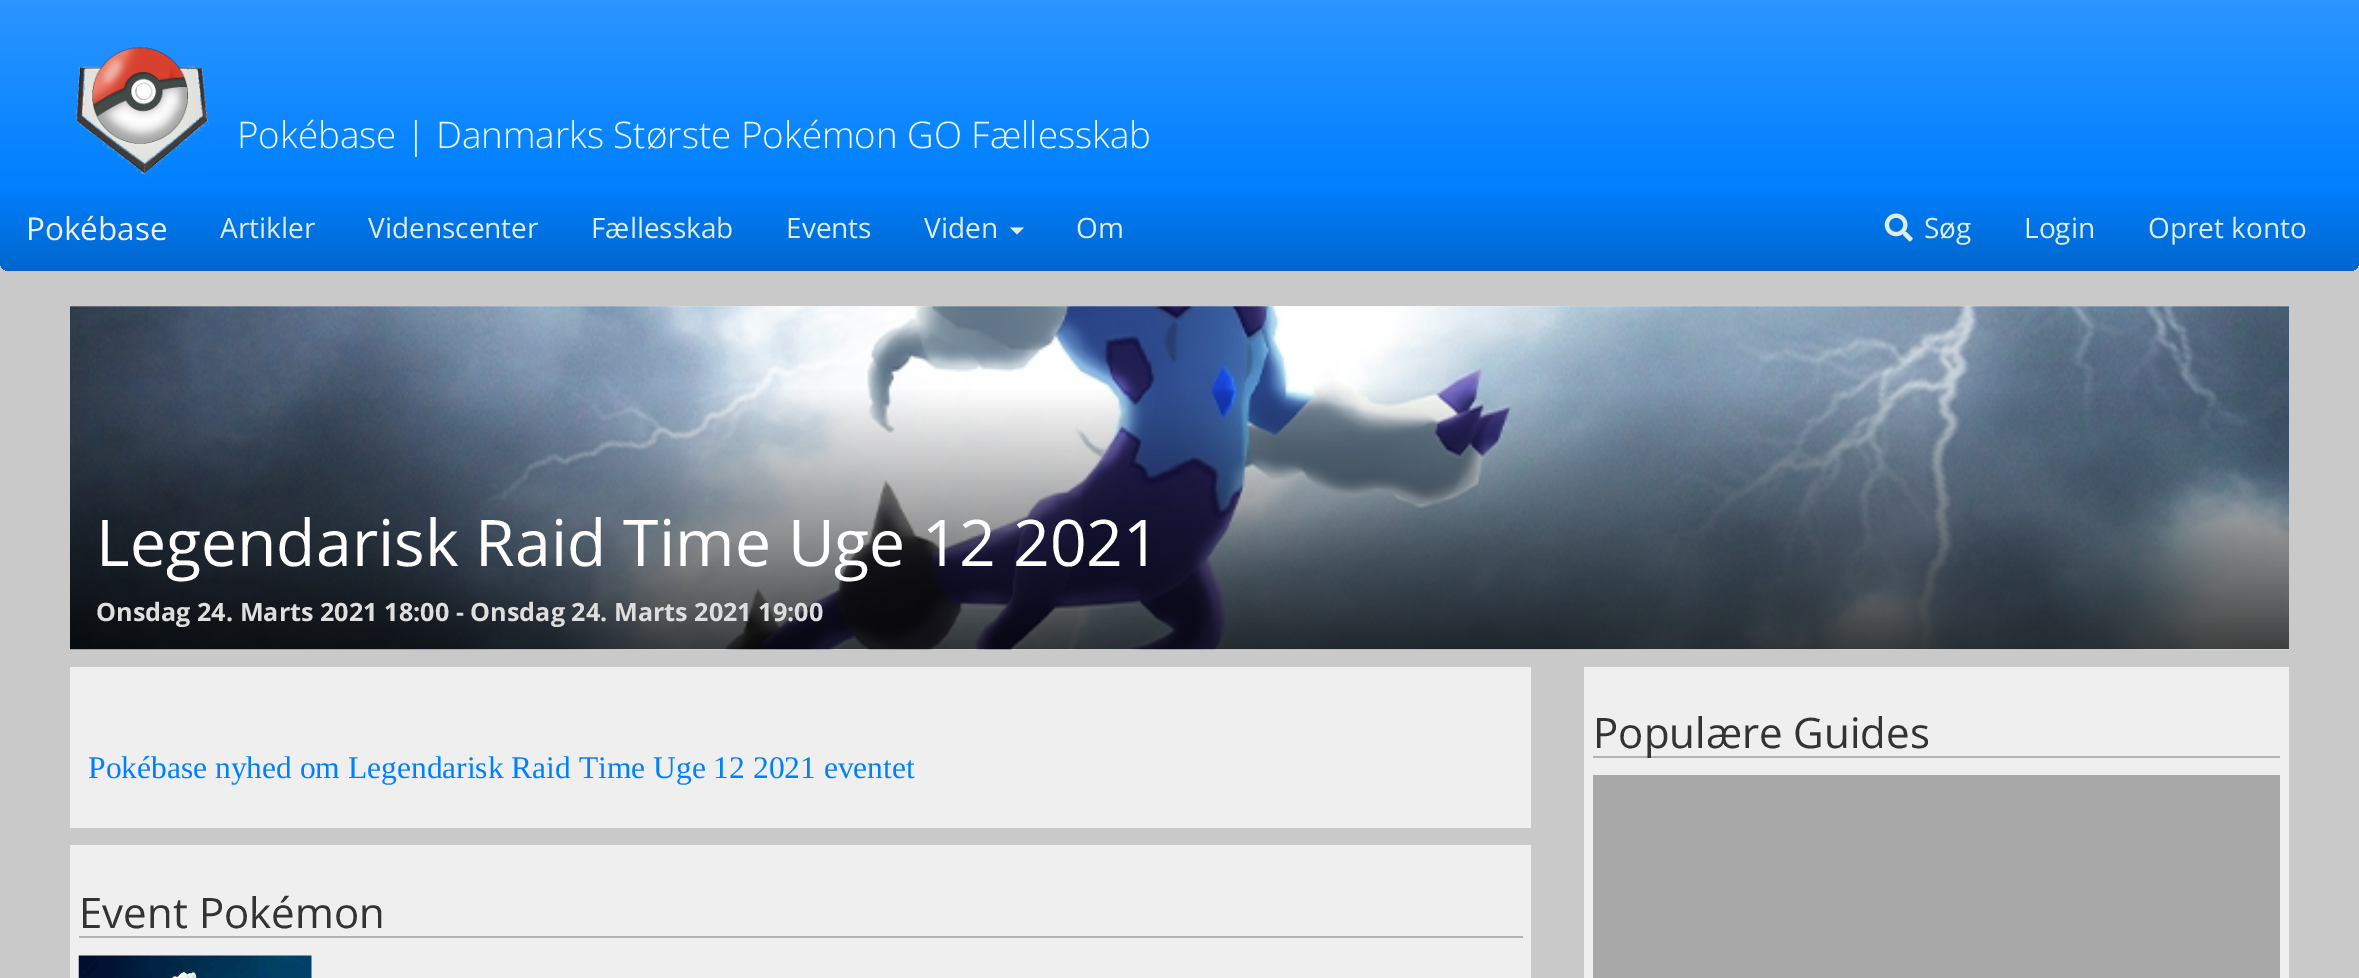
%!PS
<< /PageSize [2359 978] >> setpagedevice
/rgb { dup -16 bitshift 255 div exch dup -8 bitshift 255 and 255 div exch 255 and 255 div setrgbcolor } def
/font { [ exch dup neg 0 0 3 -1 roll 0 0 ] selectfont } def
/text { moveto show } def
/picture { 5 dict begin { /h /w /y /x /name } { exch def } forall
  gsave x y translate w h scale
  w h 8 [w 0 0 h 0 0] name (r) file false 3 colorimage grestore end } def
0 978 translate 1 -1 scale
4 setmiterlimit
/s1 { /OpenSans-Light 36.75 font 16#EEFFEF rgb } def
/s2 { /OpenSans-Regular 31.5 font 16#EEEEEE rgb } def
/s3 { /OpenSans-Regular 28 font 16#DDEEDE rgb } def
/s4 { /OpenSans-Regular 64.4 font 16#FFFFFF rgb } def
/s5 { /OpenSans-Bold 25.2 font 16#DEDEDE rgb } def
/s6 { /OpenSans-Regular 42 font 16#333333 rgb } def
/s7 { /LiberationSerif-Regular 31.5 font 16#0080FF rgb } def
16#C9C9C9 rgb
0 0 2359 978 rectfill
gsave 0 0 moveto 2359 0 lineto 2359 184 lineto 0 184 lineto closepath clip newpath
<< /ShadingType 2 /ColorSpace /DeviceRGB /Coords [1180 -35 1180 184] /Extend [true true] /Function << /FunctionType 2 /Domain [0 1] /C0 [0.2 0.6 1] /C1 [0 0.502 1] /N 1 >> >> shfill grestore
(pic1.raw) 76 47 133 128 picture
s1
(Pokébase | Danmarks Største Pokémon GO Fællesskab) 237 148 text
gsave 0 184 moveto 2359 184 lineto 2359 262 lineto 2359 267 2355 271 2350 271 curveto 9 271 lineto 4 271 0 267 0 262 curveto closepath clip newpath
<< /ShadingType 2 /ColorSpace /DeviceRGB /Coords [1180 184 1180 271] /Extend [true true] /Function << /FunctionType 2 /Domain [0 1] /C0 [0 0.502 1] /C1 [0 0.4 0.8] /N 1 >> >> shfill grestore
s2
(Pokébase) 26 240 text
s3
(Artikler) 220 238 text
(Videnscenter) 368 238 text
(Fællesskab) 591 238 text
(Events) 786 238 text
(Viden) 924 238 text
1010 227.5 moveto 1024 227.5 lineto 1017 234.5 lineto closepath fill
(Om) 1076 238 text
(pic2.raw) 1884 213 29 29 picture
(Søg) 1924 238 text
(Login) 2024 238 text
(Opret konto) 2148 238 text
(pic3.raw) 70 306 2219 344 picture
s4
(Legendarisk Raid Time Uge 12 2021) 96 566 text
s5
(Onsdag 24. Marts 2021 18:00 - Onsdag 24. Marts 2021 19:00) 96 621 text
16#EFEFEF rgb
1584 667 705 311 rectfill
16#B3B3B3 rgb
1593 756 687 2 rectfill
s6
(Populære Guides) 1593 748 text
16#A8A8A8 rgb
1593 775 687 203 rectfill
16#EFEFEF rgb
70 667 1461 161 rectfill
s7
(Pokébase nyhed om Legendarisk Raid Time Uge 12 2021 eventet) 88 778 text
16#EFEFEF rgb
70 845 1461 133 rectfill
16#B3B3B3 rgb
79 936 1444 2 rectfill
s6
(Event Pokémon) 79 928 text
(pic4.raw) 78 955 234 23 picture
(pic5.raw) 170 971 27 7 picture
showpage
